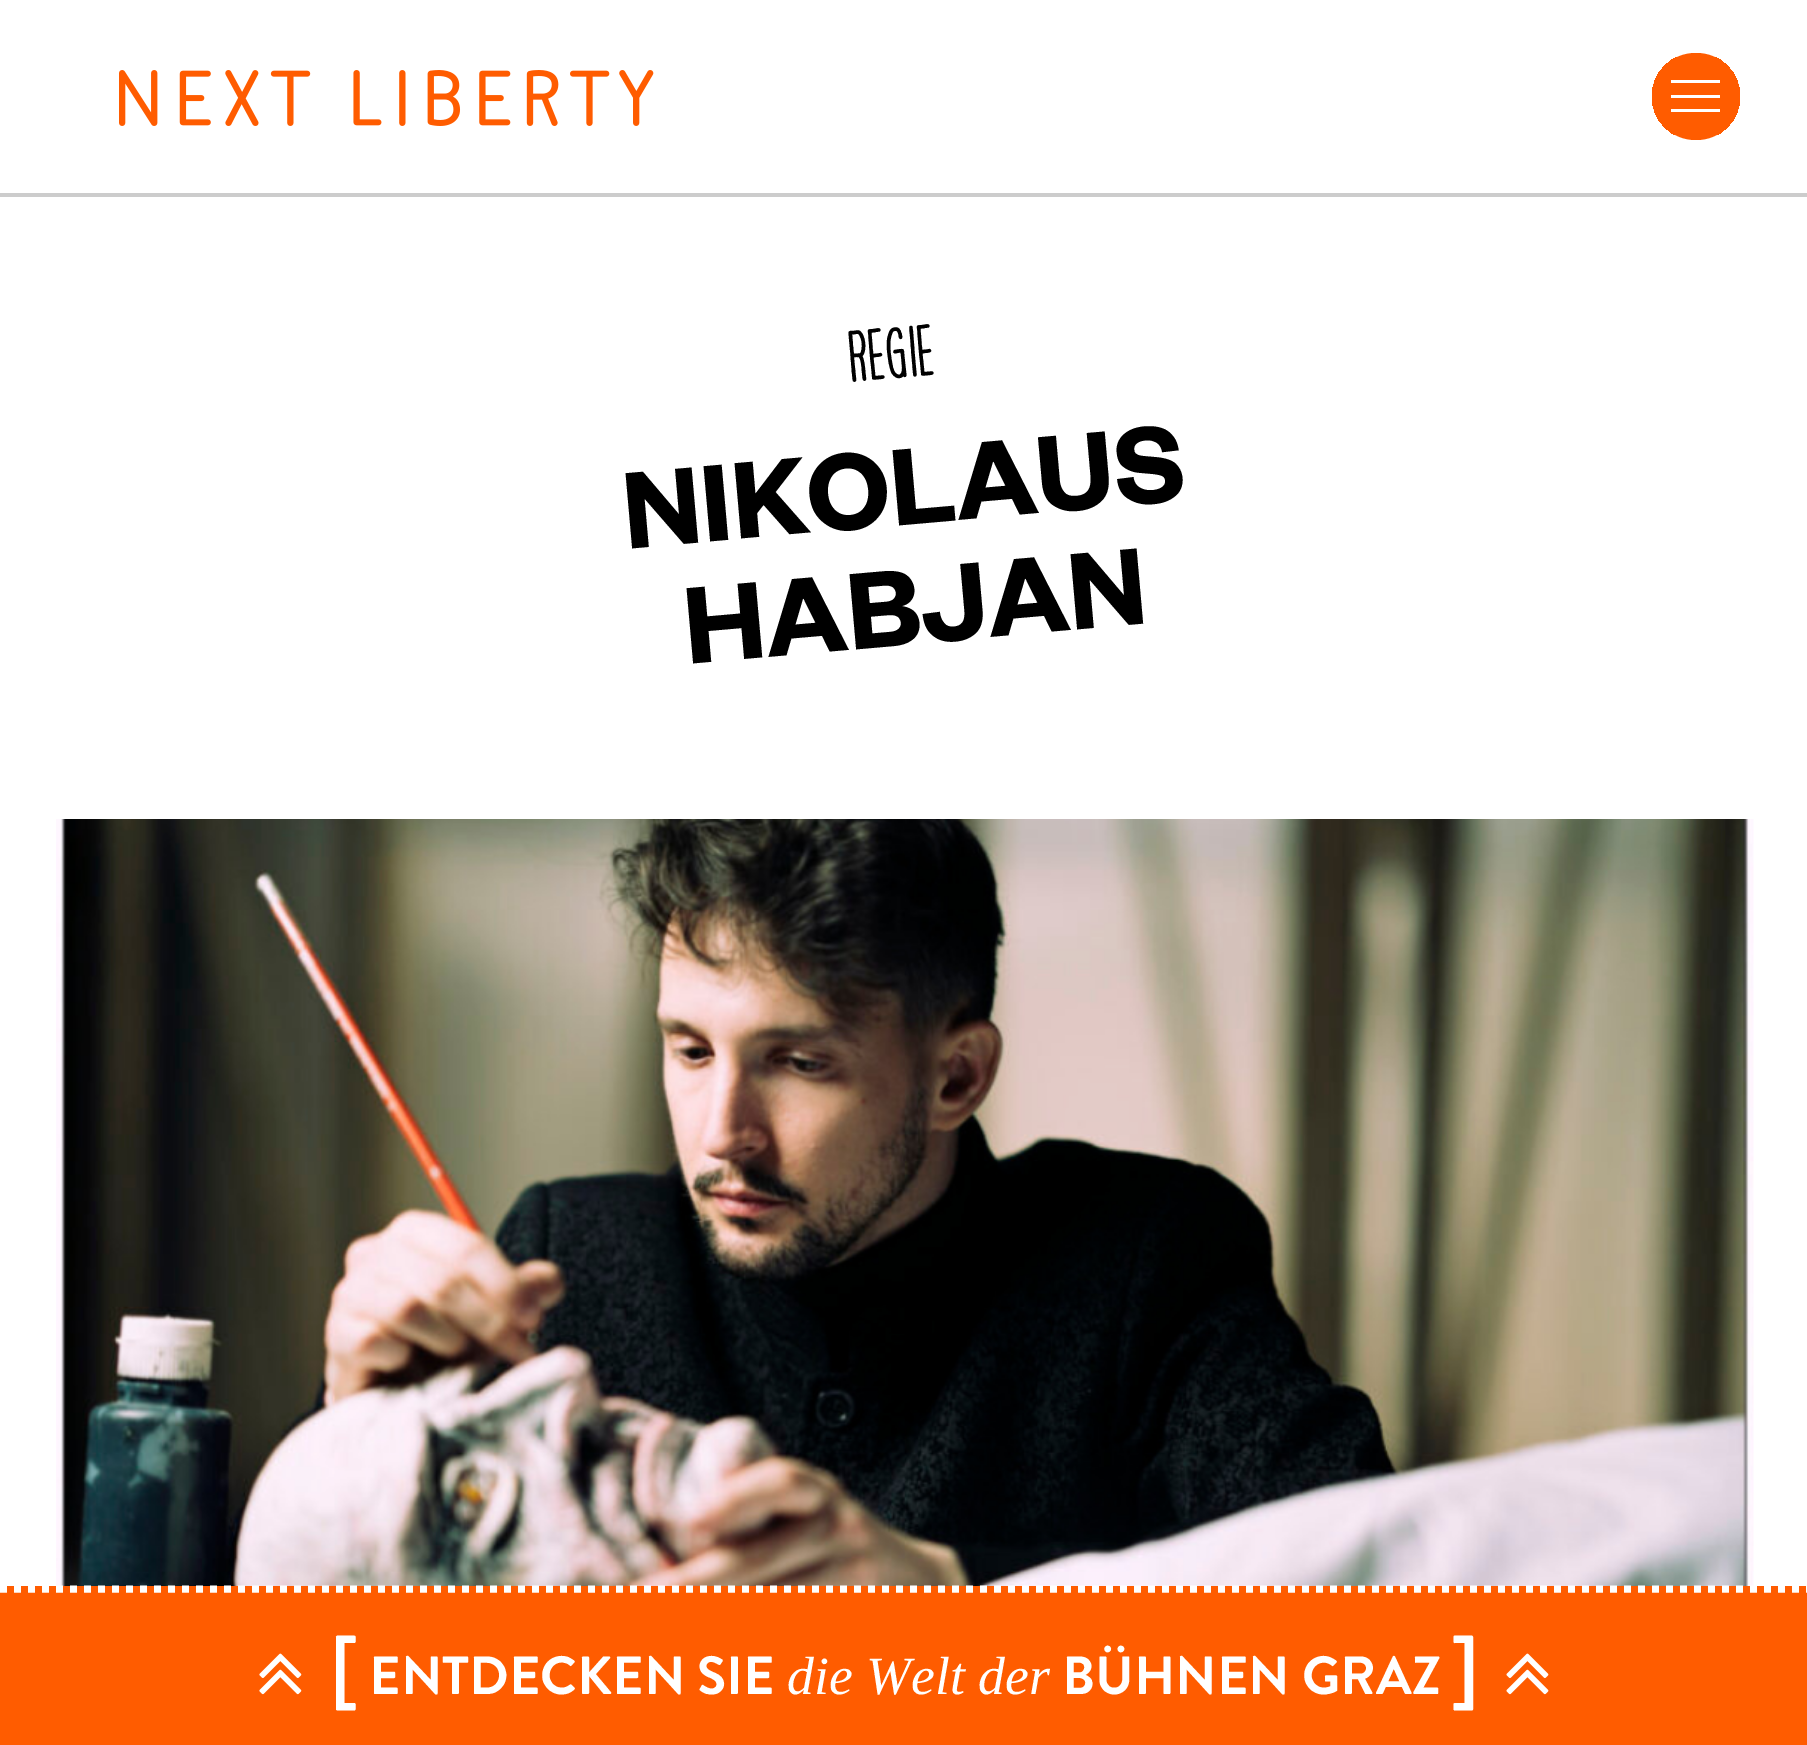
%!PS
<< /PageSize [1807 1745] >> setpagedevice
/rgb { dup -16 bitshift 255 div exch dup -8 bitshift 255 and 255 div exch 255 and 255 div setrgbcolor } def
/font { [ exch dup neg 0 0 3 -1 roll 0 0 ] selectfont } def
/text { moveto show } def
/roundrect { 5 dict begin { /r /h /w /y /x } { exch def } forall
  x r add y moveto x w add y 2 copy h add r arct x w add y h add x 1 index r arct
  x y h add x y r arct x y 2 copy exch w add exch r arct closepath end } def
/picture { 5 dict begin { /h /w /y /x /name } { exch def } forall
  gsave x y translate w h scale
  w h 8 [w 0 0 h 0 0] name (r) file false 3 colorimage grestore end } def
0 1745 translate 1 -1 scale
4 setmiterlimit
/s1 { /BrandonGrotesque-Bold 75 font 16#FFFFFF rgb } def
/s2 { /BrandonGrotesque-Bold 53.75 font 16#FFFFFF rgb } def
/s3 { /LiberationSerif-Italic 53.75 font 16#FFFFFF rgb } def
16#FFFFFF rgb
0 0 1807 1745 rectfill
16#CCCCCC rgb
0 193 1807 4 rectfill
(pic1.raw) 119 70 535 56 picture
16#FF5C00 rgb
1652 53 88 87 43.5 roundrect fill
gsave
1652 53 88 87 43.5 roundrect clip newpath
1652 57 88 78 rectfill
grestore
16#FFFFFF rgb
1671 80 49 3 rectfill
1671 95 49 3 rectfill
1671 109 49 3 rectfill
/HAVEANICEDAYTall-Bold 64 font
16#000000 rgb
gsave 852 382 translate -5 rotate 0 0 moveto (REGIE) show grestore
/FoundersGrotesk-SemiBold 120 font
gsave 626 549 translate -5 rotate 0 0 moveto (NIKOLAUS) show grestore
gsave 687 664 translate -5 rotate 0 0 moveto (HABJAN) show grestore
(pic2.raw) 56 819 1698 767 picture
16#FF5C00 rgb
0 1586 1807 159 rectfill
16#FFFFFF rgb
7 setlinewidth
[7 7] 0 setdash
0 1589 moveto 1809.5 1589 lineto stroke
(pic3.raw) 259 1653 43 42 picture
s1
([) 331 1688 text
s2
(ENTDECKEN SIE) 369 1694 text
s3
(die Welt der) 787 1694 text
s2
(BÜHNEN GRAZ) 1062 1694 text
s1
(]) 1452 1688 text
(pic4.raw) 1506 1653 43 42 picture
showpage
